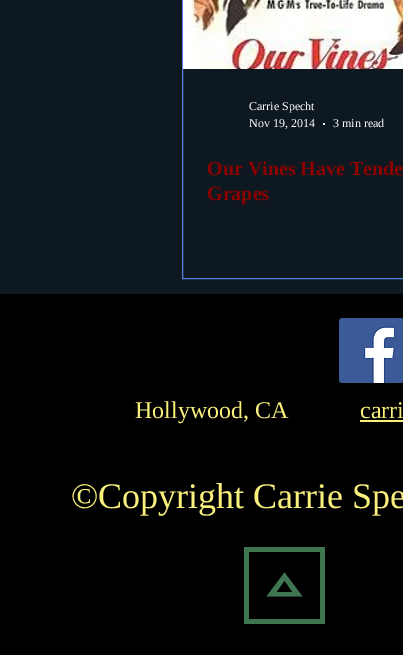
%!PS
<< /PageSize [403 655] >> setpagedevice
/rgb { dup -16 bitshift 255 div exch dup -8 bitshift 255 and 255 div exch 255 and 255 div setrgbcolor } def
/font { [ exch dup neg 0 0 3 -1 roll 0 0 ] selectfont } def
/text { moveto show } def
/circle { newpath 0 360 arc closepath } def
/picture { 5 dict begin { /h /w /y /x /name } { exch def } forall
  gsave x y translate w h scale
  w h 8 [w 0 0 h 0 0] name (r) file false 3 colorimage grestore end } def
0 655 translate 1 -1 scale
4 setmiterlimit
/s1 { /LiberationSerif-Regular 12 font 16#FFFFFF rgb } def
/s2 { /LiberationSerif-Bold 20 font 16#8B0000 rgb } def
/s3 { /LiberationSerif-Regular 24 font 16#FAF17C rgb } def
/s4 { /LiberationSerif-Regular 36 font 16#FAF17C rgb } def
16#000000 rgb
0 0 403 655 rectfill
16#0E1821 rgb
0 0 403 294 rectfill
16#5B7EE0 rgb
182.5 -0.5 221 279 rectstroke
(pic1.raw) 183 0 220 69 picture
s1
(Carrie Specht) 249 110 text
(Nov 19, 2014) 249 127 text
324 124 1 circle fill
(3 min read) 333 127 text
s2
(Our Vines Have Tende) 207 175 text
(Grapes) 207 200 text
(pic2.raw) 339 318 64 65 picture
s3
(Hollywood, CA) 135 418 text
(carri) 360 418 text
360 420 43 2 rectfill
s4
(©Copyright Carrie Spe) 71 508 text
16#3F7652 rgb
302.5 596.5 moveto 266.5 596.5 lineto 284.5 572.5 lineto closepath 276.5 592 moveto 292.5 592 lineto 284.5 580.5 lineto closepath fill
320 552 moveto 320 619 lineto 249 619 lineto 249 552 lineto closepath 325 547 moveto 244 547 lineto 244 624 lineto 325 624 lineto closepath fill
showpage
